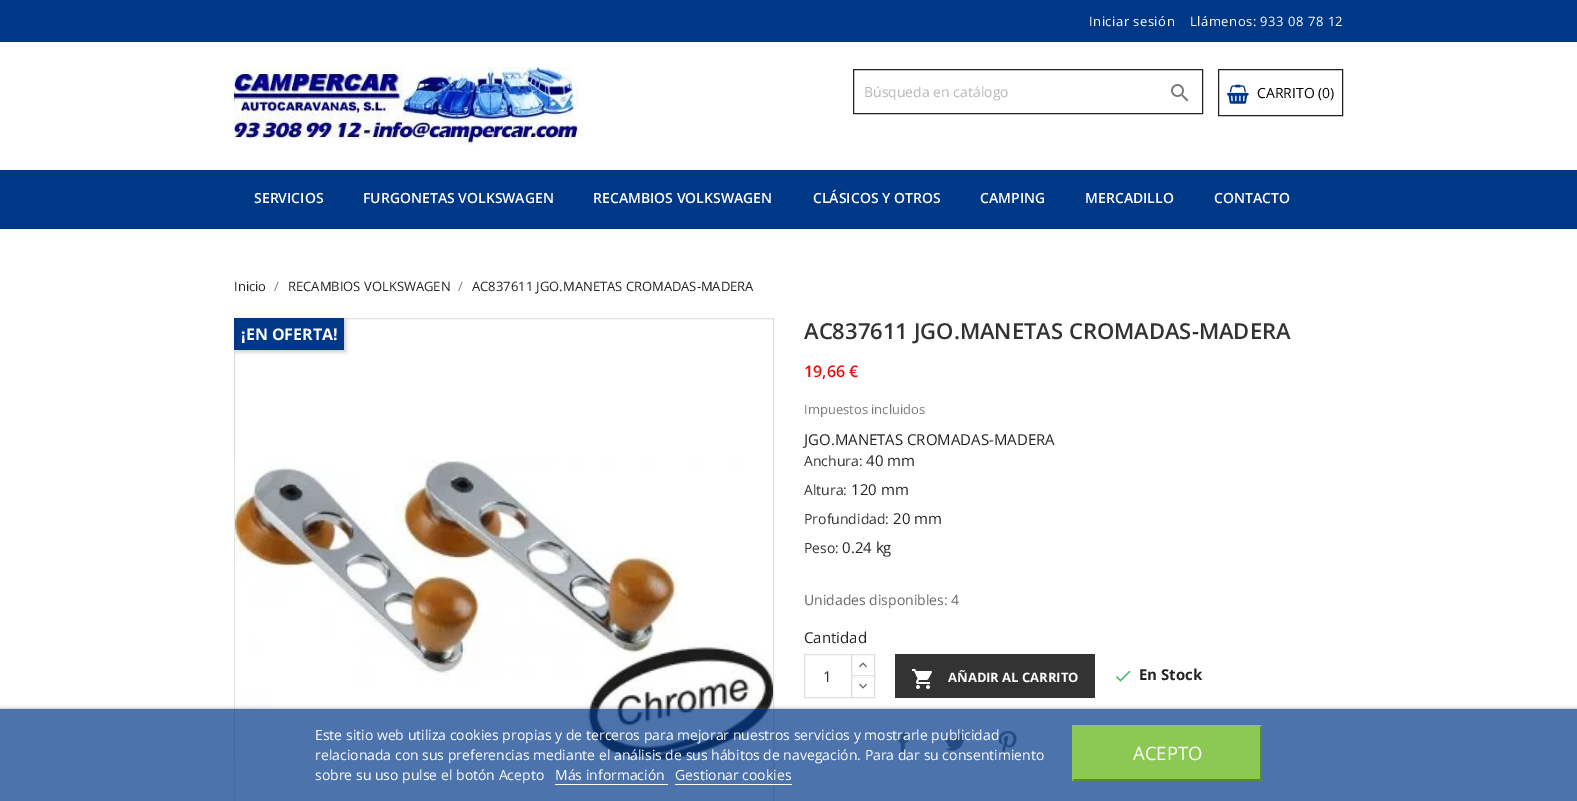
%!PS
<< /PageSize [1577 801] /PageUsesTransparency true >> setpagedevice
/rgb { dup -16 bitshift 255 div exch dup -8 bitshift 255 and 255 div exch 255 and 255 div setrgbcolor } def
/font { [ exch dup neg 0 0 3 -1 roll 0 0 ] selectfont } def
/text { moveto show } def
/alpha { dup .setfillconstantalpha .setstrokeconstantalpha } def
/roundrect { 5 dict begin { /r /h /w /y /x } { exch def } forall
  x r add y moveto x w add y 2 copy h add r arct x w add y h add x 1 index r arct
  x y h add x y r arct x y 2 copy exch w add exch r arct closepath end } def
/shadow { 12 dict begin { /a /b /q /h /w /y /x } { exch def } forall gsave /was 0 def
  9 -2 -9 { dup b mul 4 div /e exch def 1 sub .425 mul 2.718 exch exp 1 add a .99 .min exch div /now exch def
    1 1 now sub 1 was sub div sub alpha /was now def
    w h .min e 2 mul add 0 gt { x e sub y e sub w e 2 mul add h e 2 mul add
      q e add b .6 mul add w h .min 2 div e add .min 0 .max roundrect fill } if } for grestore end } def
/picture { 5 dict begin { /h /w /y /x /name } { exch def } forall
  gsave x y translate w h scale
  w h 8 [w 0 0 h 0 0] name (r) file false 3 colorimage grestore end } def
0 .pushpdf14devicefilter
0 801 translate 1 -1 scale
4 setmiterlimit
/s1 { /OpenSans-Regular 14 font 16#B7B7B7 rgb } def
/s2 { /OpenSans-Regular 14 font 16#000000 rgb } def
/s3 { /OpenSans-SemiBold 14 font 16#FFFFFF rgb } def
/s4 { /OpenSans-Regular 13 font 16#232323 rgb } def
/s5 { /OpenSans-Regular 13 font 16#7A7A7A rgb } def
/s6 { /OpenSans-Bold 16 font 16#FFFFFF rgb } def
/s7 { /OpenSans-SemiBold 22 font 16#333333 rgb } def
/s8 { /OpenSans-SemiBold 16 font 16#EB0E0E rgb } def
/s9 { /OpenSans-Regular 15 font 16#232323 rgb } def
/s10 { /OpenSans-Regular 14 font 16#333333 rgb } def
/s11 { /OpenSans-Regular 14 font 16#666666 rgb } def
/s12 { /OpenSans-Regular 15 font 16#333333 rgb } def
/s13 { /OpenSans-Bold 13 font 16#FFFFFF rgb } def
/s14 { /OpenSans-Bold 15 font 16#232323 rgb } def
/s15 { /OpenSans-Regular 14 font 16#FFFFFF rgb } def
/s16 { /OpenSans-Regular 18.5 font 16#FFFFFF rgb } def
16#FFFFFF rgb
0 0 1577 801 rectfill
16#003888 rgb
0 0 1577 42 rectfill
/OpenSans-Regular 13 font
16#FFFFFF rgb
1089 26 moveto 0.5 0 (Iniciar sesión) ashow
1190 26 moveto 0.5 0 (Llámenos: 933 08 78 12) ashow
(pic1.raw) 234 67 349 78 picture
16#222222 rgb
853.5 69.5 349 44 rectstroke
s1
(Búsqueda en catálogo) 864 97 text
(pic2.raw) 1171 84 18 18 picture
16#222222 rgb
1218.5 69.5 124 46 rectstroke
(pic3.raw) 1227 84 22 20 picture
s2
(CARRITO \(0\)) 1257 98 text
16#003888 rgb
0 170 1577 59 rectfill
s3
(SERVICIOS) 254 203 text
(FURGONETAS VOLKSWAGEN) 363 203 text
(RECAMBIOS VOLKSWAGEN) 593 203 text
(CLÁSICOS Y OTROS) 813 203 text
(CAMPING) 980 203 text
(MERCADILLO) 1085 203 text
(CONTACTO) 1214 203 text
s4
(Inicio) 234 291 text
s5
(/) 274 291 text
s4
(RECAMBIOS VOLKSWAGEN) 288 291 text
s5
(/) 458 291 text
s4
(AC837611 JGO.MANETAS CROMADAS-MADERA) 472 291 text
16#E1E1E1 rgb
234.5 318.5 539 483 rectstroke
(pic4.raw) 235 460 538 301 picture
16#000000 rgb
236 320 110 32 0 2 0.2 shadow
16#003888 rgb
234 318 110 32 rectfill
s6
(¡EN OFERTA!) 241 340 text
s7
(AC837611 JGO.MANETAS CROMADAS-MADERA) 804 339 text
s8
(19,66 €) 804 377 text
s5
(Impuestos incluidos) 804 414 text
s9
(JGO.MANETAS CROMADAS-MADERA) 804 445 text
s10
(Anchura:) 804 466 text
s9
(40 mm) 866 466 text
s10
(Altura:) 804 495 text
s9
(120 mm) 851 495 text
s10
(Profundidad:) 804 524 text
s9
(20 mm) 893 524 text
s10
(Peso:) 804 553 text
s9
(0.24 kg) 842 553 text
s11
(Unidades disponibles: 4) 804 605 text
s9
(Cantidad) 804 643 text
16#E1E1E1 rgb
851.5 654.5 23 22 rectstroke
16#FFFFFF rgb
852 676 22 1 rectfill
16#E1E1E1 rgb
851.5 675.5 23 22 rectstroke
804.5 654.5 47 43 rectstroke
s12
(1) 823 682 text
(pic5.raw) 859 662 8 6 picture
(pic6.raw) 859 683 8 6 picture
895 654 200 44 rectfill
(pic7.raw) 912 669 20 20 picture
s13
(AÑADIR AL CARRITO) 948 682 text
(pic8.raw) 1115 670 16 12 picture
s14
(En Stock) 1139 680 text
(pic9.raw) 898 732 11 21 picture
(pic10.raw) 945 733 21 18 picture
(pic11.raw) 998 731 19 23 picture
gsave
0 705 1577 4 rectclip
16#707070 rgb
0 710 1577 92 0 2.5 1 shadow
grestore
0.7 alpha
16#003888 rgb
0 709 1577 92 rectfill
1 alpha
s15
(Este sitio web utiliza cookies propias y de terceros para mejorar nuestros servicios y mostrarle publicidad) 315 740 text
(relacionada con sus preferencias mediante el análisis de sus hábitos de navegación. Para dar su consentimiento) 315 760 text
(sobre su uso pulse el botón Acepto) 315 780 text
(Más información) 555 780 text
555 784 113 1 rectfill
(Gestionar cookies) 675 780 text
675 784 117 1 rectfill
16#8BC954 rgb
1072 725 190 56 rectfill
16#5D8638 rgb
1262 725 moveto 1262 781 lineto 1260 779 lineto 1260 727 lineto closepath fill
1262 781 moveto 1072 781 lineto 1074 779 lineto 1260 779 lineto closepath fill
16#8BC954 rgb
1072 781 moveto 1072 725 lineto 1074 727 lineto 1074 779 lineto closepath fill
s16
(ACEPTO) 1133 760 text
.poppdf14devicefilter showpage
